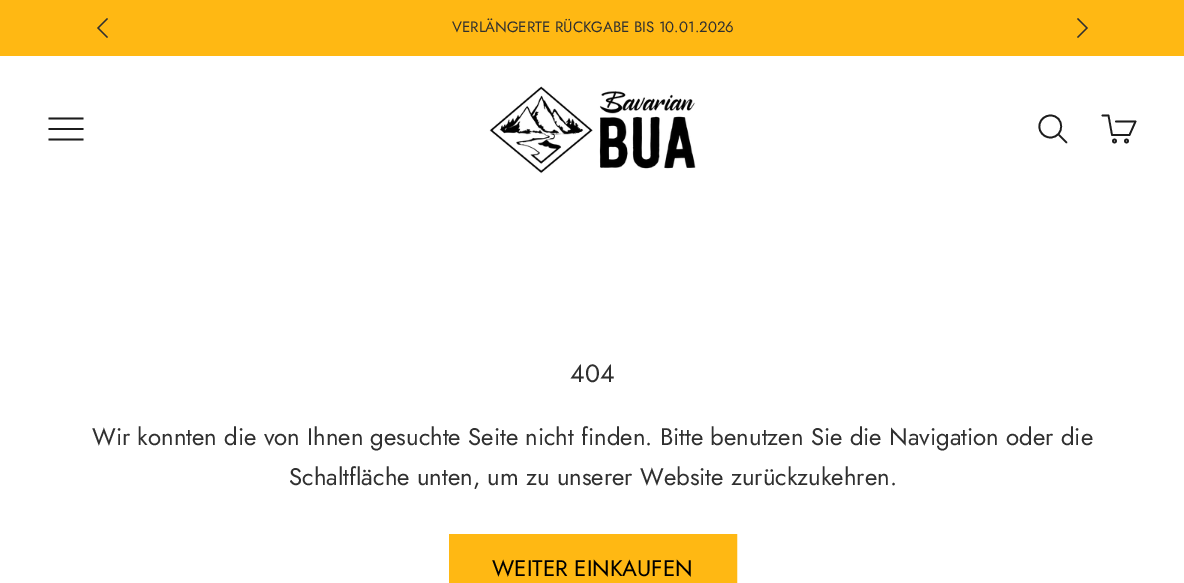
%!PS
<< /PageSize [1184 583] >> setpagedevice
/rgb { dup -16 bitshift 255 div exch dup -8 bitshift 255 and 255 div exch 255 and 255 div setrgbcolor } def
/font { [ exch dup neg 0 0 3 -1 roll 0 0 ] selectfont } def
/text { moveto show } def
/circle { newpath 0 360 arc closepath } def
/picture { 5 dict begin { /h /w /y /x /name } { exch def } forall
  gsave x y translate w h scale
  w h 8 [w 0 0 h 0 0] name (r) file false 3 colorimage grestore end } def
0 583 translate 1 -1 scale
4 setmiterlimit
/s1 { /Jost-Regular 15 font 16#303030 rgb } def
/s2 { /Jost-Regular 25 font 16#303030 rgb } def
/s3 { /Jost-Regular 24 font 16#303030 rgb } def
/s4 { /Jost-Regular 22.5 font 16#000000 rgb } def
16#FFFFFF rgb
0 0 1184 583 rectfill
16#FFB813 rgb
0 0 1184 56 rectfill
16#303030 rgb
1.1 setlinewidth
2 setlinecap
107 19 moveto 98 28 lineto 107 37 lineto stroke
s1
(VERLÄNGERTE RÜCKGABE BIS 10.01.2026) 452 32 text
1078 37 moveto 1087 28 lineto 1078 19 lineto stroke
16#1C1C1C rgb
1.7 setlinewidth
49.5 139.5 moveto 82.5 139.5 lineto 49.5 129 moveto 82.5 129 lineto 49.5 118.5 moveto 82.5 118.5 lineto stroke
(pic1.raw) 489 86 207 88 picture
0 setlinecap
1050.5 115.5 moveto 1039 115.5 1035 130.5 1045 136 curveto 1046.5 137 1048.5 137.5 1050.5 137.5 curveto 1065 137 1064.5 115.5 1050.5 115.5 curveto closepath stroke
1 setlinecap
1059 135 moveto 1066.5 142.5 lineto stroke
1 setlinejoin
1116 121.5 moveto 1135.5 121.5 lineto 1129.5 135 lineto 1112 135 lineto 1108.5 115.5 lineto 1102.5 115.5 lineto stroke
0 setlinecap
0 setlinejoin
1114.5 141 1.5 circle stroke
1126.5 141 1.5 circle stroke
s2
(404) 570 382 text
s3
(Wir konnten die von Ihnen gesuchte Seite nicht finden. Bitte benutzen Sie die Navigation oder die) 92 445 text
(Schaltfläche unten, um zu unserer Website zurückzukehren.) 289 485 text
16#FFB813 rgb
450 535 moveto 736 535 lineto 736 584 lineto 450 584 lineto closepath gsave fill grestore
2 setlinewidth
stroke
s4
(WEITER EINKAUFEN) 492 576 text
showpage
